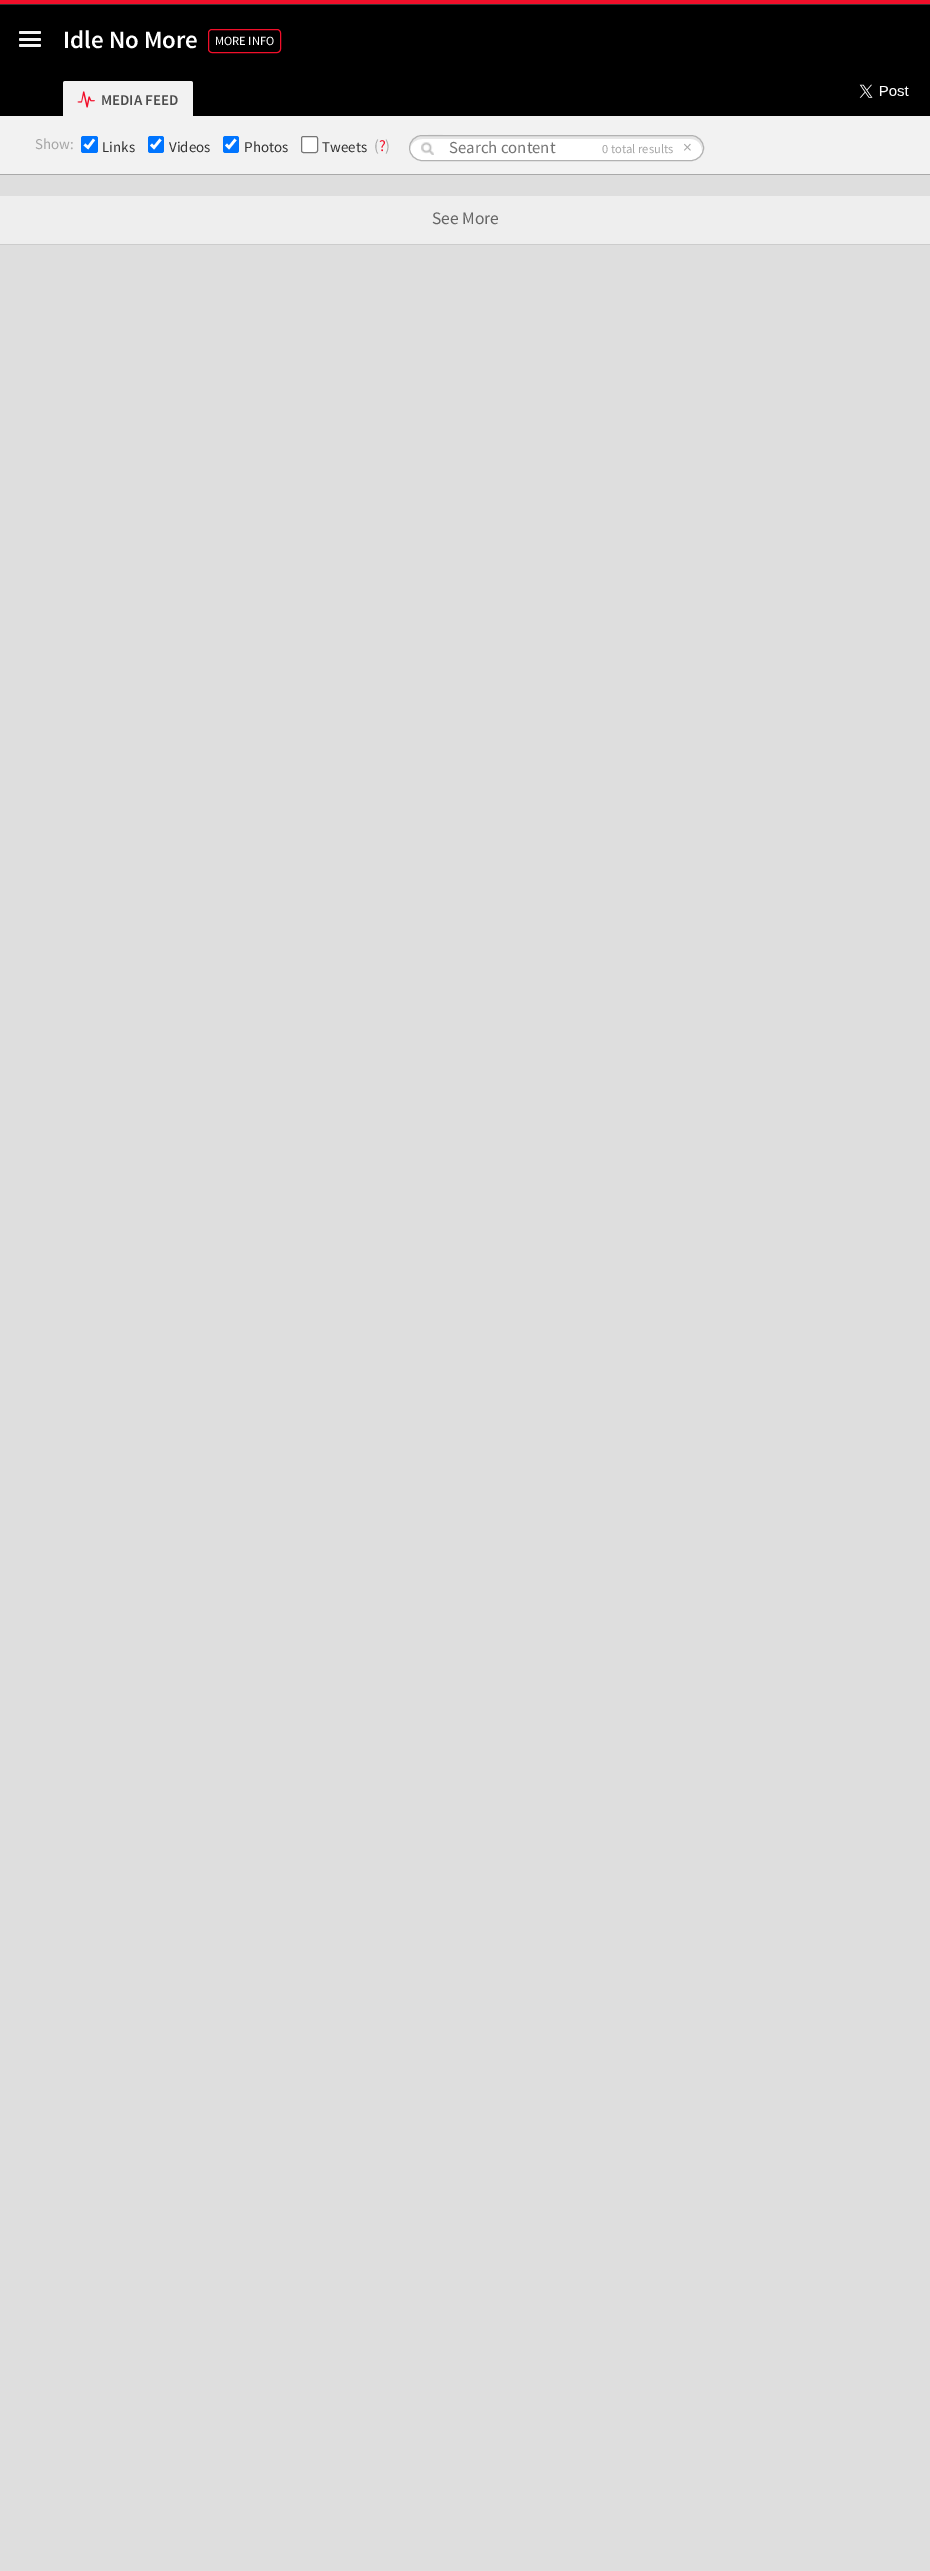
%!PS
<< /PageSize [930 2571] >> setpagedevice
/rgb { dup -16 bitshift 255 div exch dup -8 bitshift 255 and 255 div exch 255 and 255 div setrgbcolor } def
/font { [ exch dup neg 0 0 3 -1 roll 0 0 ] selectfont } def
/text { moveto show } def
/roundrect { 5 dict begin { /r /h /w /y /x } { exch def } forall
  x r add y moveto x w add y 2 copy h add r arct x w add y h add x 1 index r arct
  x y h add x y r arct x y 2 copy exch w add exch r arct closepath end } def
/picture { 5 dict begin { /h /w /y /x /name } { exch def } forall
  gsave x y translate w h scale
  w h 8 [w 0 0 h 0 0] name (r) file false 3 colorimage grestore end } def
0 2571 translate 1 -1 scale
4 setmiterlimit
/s1 { /SourceSansPro-SemiBold 25 font 16#FFFFFF rgb } def
/s2 { /SourceSansPro-Regular 12.5 font 16#FFFFFF rgb } def
/s3 { /SourceSansPro-SemiBold 15 font 16#4C4C4C rgb } def
/s4 { /SourceSansPro-Regular 15 font 16#A6A6A6 rgb } def
/s5 { /SourceSansPro-Regular 15 font 16#333333 rgb } def
/s6 { /SourceSansPro-Regular 16 font 16#A6A6A6 rgb } def
/s7 { /SourceSansPro-Regular 16 font 16#F10F2A rgb } def
/s8 { /SourceSansPro-Regular 16.75 font 16#757575 rgb } def
/s9 { /SourceSansPro-Regular 12.5 font 16#A6A6A6 rgb } def
/s10 { /SourceSansPro-Regular 17.5 font 16#A6A6A6 rgb } def
/s11 { /SourceSansPro-Regular 17.5 font 16#666666 rgb } def
16#DEDEDE rgb
0 0 930 2571 rectfill
16#000000 rgb
0 5 930 111 rectfill
16#F5F5F5 rgb
19 31 22 3 1.5 roundrect fill
19 38 22 3 1.5 roundrect fill
19 44 22 3 1.5 roundrect fill
16#F2F2F2 rgb
0 116 930 58 rectfill
16#A9A9A9 rgb
0 174 930 1 rectfill
16#333333 rgb
0 4 930 1 rectfill
16#F10F2A rgb
0 0 930 4 rectfill
s1
(Idle No More) 63 48 text
16#F10F2A rgb
208.5 29.5 72 23 3.5 roundrect stroke
s2
(MORE INFO) 215 45 text
(pic1.raw) 859 84 50 14 picture
16#F2F2F2 rgb
65.5 81 moveto 190.5 81 lineto 192 81 193 82 193 83.5 curveto 193 116 lineto 63 116 lineto 63 83.5 lineto 63 82 64 81 65.5 81 curveto closepath fill
(pic2.raw) 77 91 18 17 picture
s3
(MEDIA FEED) 101 105 text
s4
(Show:) 35 149 text
16#0075FF rgb
81 136 17 17 2.5 roundrect fill
16#FFFFFF rgb
2.6 setlinewidth
84.5 144.5 moveto 88 147.5 lineto 94 139.5 lineto stroke
s5
(Links) 102 152 text
16#0075FF rgb
148 136 16 17 2.5 roundrect fill
16#FFFFFF rgb
151 144.5 moveto 154 147.5 lineto 160.5 139.5 lineto stroke
s5
(Videos) 169 152 text
16#0075FF rgb
223 136 16 17 2.5 roundrect fill
16#FFFFFF rgb
226 144.5 moveto 229 147.5 lineto 235.5 139.5 lineto stroke
s5
(Photos) 244 152 text
16#FFFFFF rgb
301.5 136.5 16 16 2 roundrect gsave fill grestore
16#767676 rgb
1 setlinewidth
stroke
s5
(Tweets) 322 152 text
s6
(\() 374 151 text
s7
(?) 379 151 text
s6
(\)) 385 151 text
16#FFFFFF rgb
409 135 295 26 13 roundrect fill
16#E6E6E6 rgb
422 139 moveto 691 139 lineto 697 139 702 144 702 151 curveto 702 153 lineto 706 146 700 136 691 136 curveto 467 136 lineto 442 136 408 129 410 149 curveto 411 143 416 139 422 139 curveto closepath fill
16#B2B2B2 rgb
409.5 135.5 294 25 12.5 roundrect stroke
(pic3.raw) 421 142 13 13 picture
s8
(Search content) 449 153 text
s9
(0 total results) 602 153 text
s10
(×) 683 153 text
16#EEEEEE rgb
0 196 930 48 rectfill
16#CCCCCC rgb
0 244 930 1 rectfill
s11
(See More) 432 224 text
showpage
